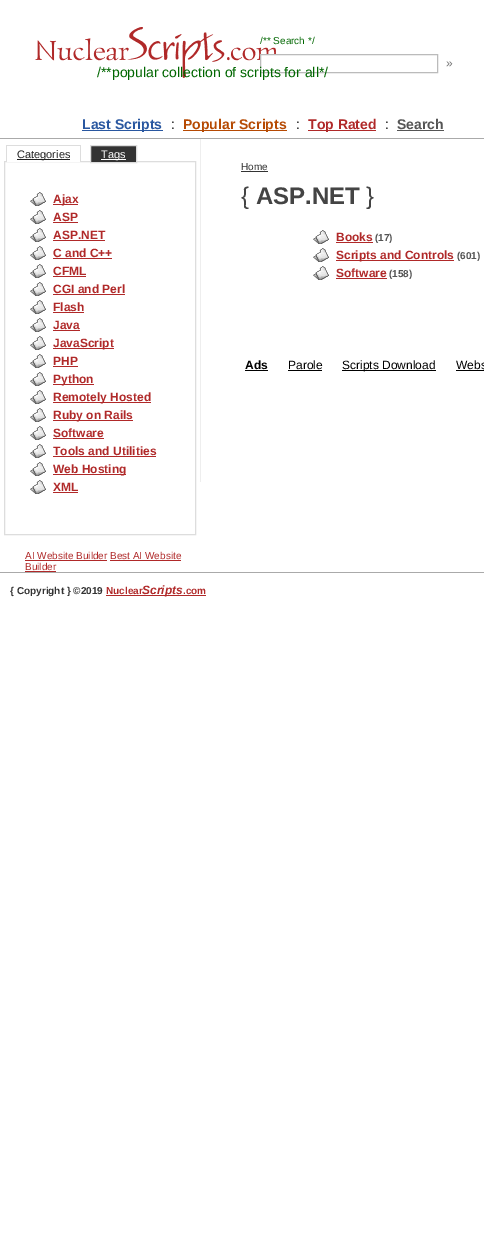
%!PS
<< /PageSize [484 1248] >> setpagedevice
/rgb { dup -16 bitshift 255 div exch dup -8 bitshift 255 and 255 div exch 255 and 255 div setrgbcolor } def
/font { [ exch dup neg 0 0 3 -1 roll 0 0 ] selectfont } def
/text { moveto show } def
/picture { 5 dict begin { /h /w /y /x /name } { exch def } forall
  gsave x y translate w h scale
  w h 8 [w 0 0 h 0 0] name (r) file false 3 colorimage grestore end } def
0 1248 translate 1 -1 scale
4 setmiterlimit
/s1 { /LiberationSans-Regular 10 font 16#006600 rgb } def
/s2 { /LiberationSans-Regular 12 font 16#777777 rgb } def
/s3 { /LiberationSans-Regular 14 font 16#006600 rgb } def
/s4 { /LiberationSans-Bold 14 font 16#2957A0 rgb } def
/s5 { /LiberationSans-Regular 14 font 16#000000 rgb } def
/s6 { /LiberationSans-Bold 14 font 16#B64A03 rgb } def
/s7 { /LiberationSans-Bold 14 font 16#B02929 rgb } def
/s8 { /LiberationSans-Bold 14 font 16#555555 rgb } def
/s9 { /LiberationSans-Regular 11 font 16#222222 rgb } def
/s10 { /LiberationSans-Regular 11 font 16#FFFFFF rgb } def
/s11 { /LiberationSans-Bold 12 font 16#B02929 rgb } def
/s12 { /LiberationSans-Regular 10 font 16#B02929 rgb } def
/s13 { /LiberationSans-Regular 10 font 16#333333 rgb } def
/s14 { /LiberationSans-Regular 24 font 16#444444 rgb } def
/s15 { /LiberationSans-Bold 24 font 16#444444 rgb } def
/s16 { /LiberationSans-Bold 10 font 16#555555 rgb } def
/s17 { /LiberationSans-Bold 12 font 16#000000 rgb } def
/s18 { /LiberationSans-Regular 12 font 16#000000 rgb } def
/s19 { /LiberationSans-Bold 10 font 16#333333 rgb } def
/s20 { /LiberationSans-Bold 10 font 16#B02929 rgb } def
/s21 { /LiberationSans-BoldItalic 12 font 16#B02929 rgb } def
16#FFFFFF rgb
0 0 484 1248 rectfill
16#AAAAAA rgb
0 138 484 1 rectfill
(pic1.raw) 35 27 241 51 picture
s1
(/** Search */) 260 44 text
16#FFFFFF rgb
261 55 15 5 rectfill
16#BBBBBB rgb
260.5 54.5 177 18 rectstroke
s2
(») 446 67 text
s3
(/**popular collection of scripts for all*/) 97 77 text
16#2957A0 rgb
82 130 81 1 rectfill
s4
(Last Scripts) 82 129 text
s5
(:) 171 129 text
16#B64A03 rgb
183 130 104 1 rectfill
s6
(Popular Scripts) 183 129 text
s5
(:) 296 129 text
16#B02929 rgb
308 130 68 1 rectfill
s7
(Top Rated) 308 129 text
s5
(:) 385 129 text
s8
(Search) 397 129 text
397 130 47 1 rectfill
16#222222 rgb
17 159 53 1 rectfill
s9
(Categories) 17 158 text
16#DDDDDD rgb
4.5 161.5 191 373 rectstroke
16#FFFFFF rgb
7 161 73 1 rectfill
16#DDDDDD rgb
6 145 75 1 rectfill
80 145 1 17 rectfill
6 145 1 17 rectfill
16#333333 rgb
90.5 145.5 moveto 136.5 145.5 lineto 136.5 162.5 lineto 90.5 162.5 lineto closepath gsave fill grestore
16#DDDDDD rgb
stroke
16#FFFFFF rgb
101 159 25 1 rectfill
(Tags) 101 158 text
(pic2.raw) 30 192 16 14 picture
16#B02929 rgb
53 204 25 1 rectfill
s11
(Ajax) 53 203 text
(pic2.raw) 30 210 16 14 picture
(ASP) 53 221 text
53 222 25 1 rectfill
(pic2.raw) 30 228 16 14 picture
(ASP.NET) 53 239 text
53 240 52 1 rectfill
(pic2.raw) 30 246 16 14 picture
(C and C++) 53 257 text
53 258 59 1 rectfill
(pic2.raw) 30 264 16 14 picture
(CFML) 53 275 text
53 276 33 1 rectfill
(pic2.raw) 30 282 16 14 picture
(CGI and Perl) 53 293 text
53 294 72 1 rectfill
(pic2.raw) 30 300 16 14 picture
(Flash) 53 311 text
53 312 31 1 rectfill
(pic2.raw) 30 318 16 14 picture
(Java) 53 329 text
53 330 27 1 rectfill
(pic2.raw) 30 336 16 14 picture
53 348 61 1 rectfill
(JavaScript) 53 347 text
(pic2.raw) 30 354 16 14 picture
(PHP) 53 365 text
53 366 25 1 rectfill
(pic2.raw) 30 372 16 14 picture
53 384 41 1 rectfill
(Python) 53 383 text
(pic2.raw) 30 390 16 14 picture
53 402 98 1 rectfill
(Remotely Hosted) 53 401 text
(pic2.raw) 30 408 16 14 picture
53 420 80 1 rectfill
(Ruby on Rails) 53 419 text
(pic2.raw) 30 426 16 14 picture
(Software) 53 437 text
53 438 51 1 rectfill
(pic2.raw) 30 444 16 14 picture
(Tools and Utilities) 53 455 text
53 456 103 1 rectfill
(pic2.raw) 30 462 16 14 picture
53 474 73 1 rectfill
(Web Hosting) 53 473 text
(pic2.raw) 30 480 16 14 picture
(XML) 53 491 text
53 492 25 1 rectfill
s12
(AI Website Builder Best AI Website) 25 559 text
25 560 82 1 rectfill
(Builder) 25 570 text
110 560 71 1 rectfill
25 571 31 1 rectfill
16#EEEEEE rgb
200 139 1 343 rectfill
s13
(Home) 241 170 text
241 171 27 1 rectfill
s14
({) 241 204 text
s15
(ASP.NET) 256 204 text
s14
(}) 366 204 text
(pic2.raw) 313 230 16 14 picture
s11
(Books) 336 241 text
336 242 37 1 rectfill
s16
(\(17\)) 375 241 text
(pic2.raw) 313 248 16 14 picture
16#B02929 rgb
336 260 118 1 rectfill
s11
(Scripts and Controls) 336 259 text
s16
(\(601\)) 457 259 text
(pic2.raw) 313 266 16 14 picture
s11
(Software) 336 277 text
336 278 51 1 rectfill
s16
(\(158\)) 389 277 text
s17
(Ads) 245 369 text
245 370 23 1 rectfill
s18
(Parole) 288 369 text
288 370 34 1 rectfill
342 370 94 1 rectfill
(Scripts Download) 342 369 text
(Webs) 456 369 text
456 370 28 1 rectfill
16#AAAAAA rgb
0 572 484 1 rectfill
s19
({ Copyright } ©2019) 10 594 text
s20
(Nuclear) 106 594 text
106 595 100 1 rectfill
s21
(Scripts) 142 594 text
s20
(.com) 183 594 text
showpage
